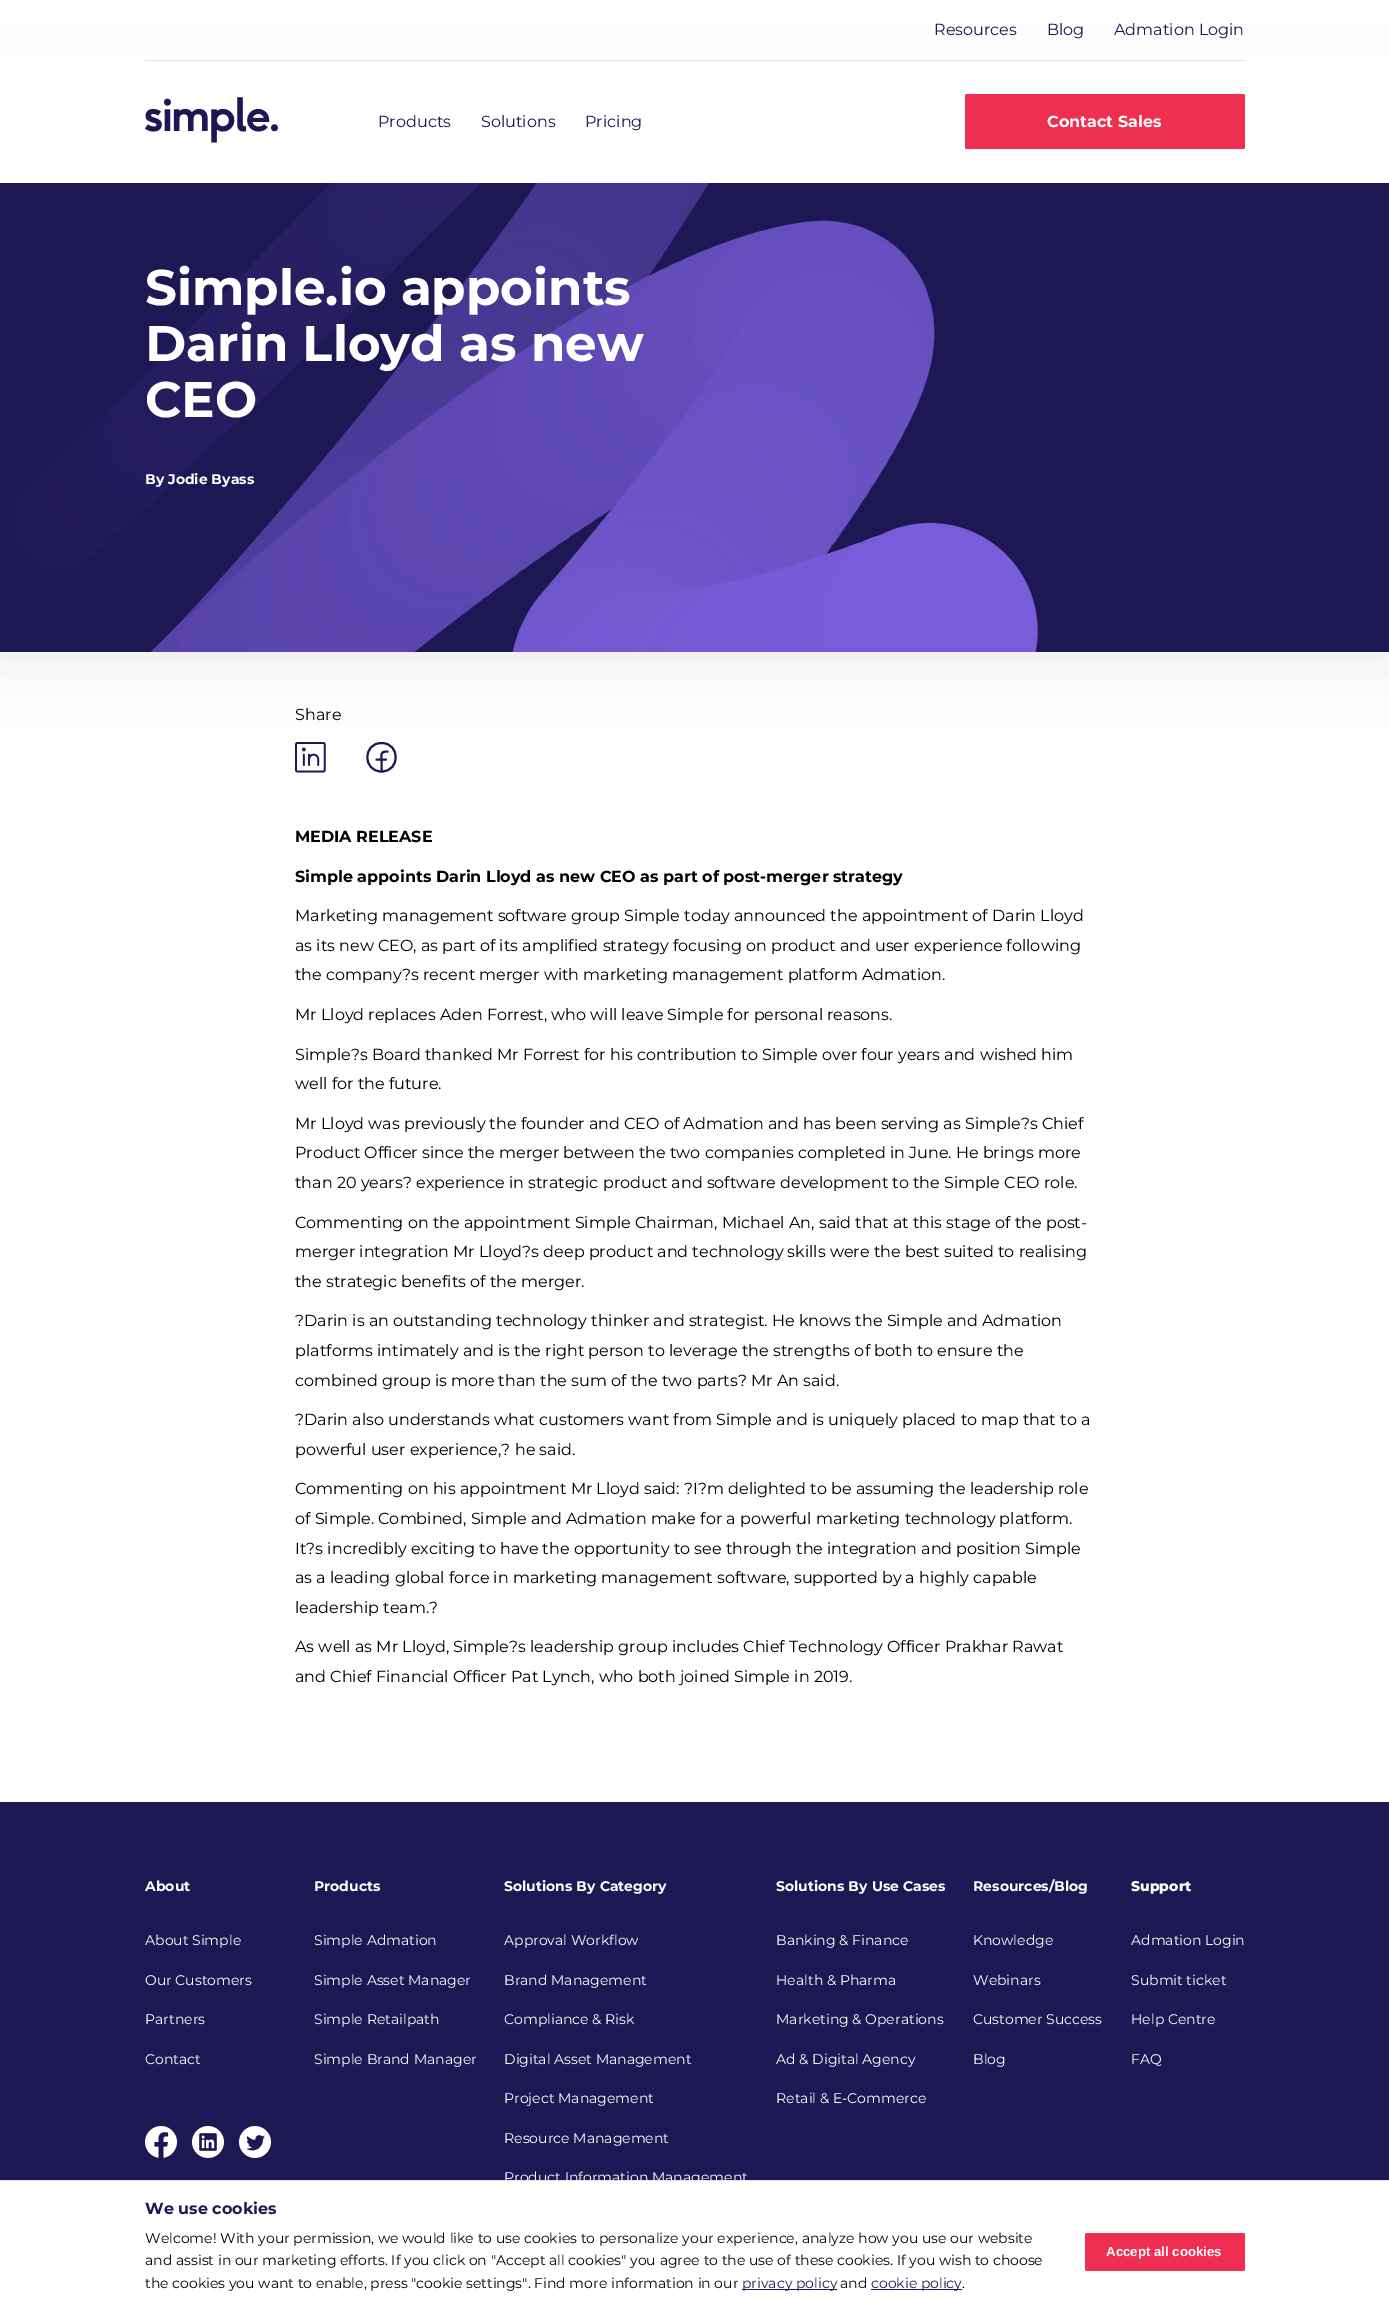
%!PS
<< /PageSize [1389 2324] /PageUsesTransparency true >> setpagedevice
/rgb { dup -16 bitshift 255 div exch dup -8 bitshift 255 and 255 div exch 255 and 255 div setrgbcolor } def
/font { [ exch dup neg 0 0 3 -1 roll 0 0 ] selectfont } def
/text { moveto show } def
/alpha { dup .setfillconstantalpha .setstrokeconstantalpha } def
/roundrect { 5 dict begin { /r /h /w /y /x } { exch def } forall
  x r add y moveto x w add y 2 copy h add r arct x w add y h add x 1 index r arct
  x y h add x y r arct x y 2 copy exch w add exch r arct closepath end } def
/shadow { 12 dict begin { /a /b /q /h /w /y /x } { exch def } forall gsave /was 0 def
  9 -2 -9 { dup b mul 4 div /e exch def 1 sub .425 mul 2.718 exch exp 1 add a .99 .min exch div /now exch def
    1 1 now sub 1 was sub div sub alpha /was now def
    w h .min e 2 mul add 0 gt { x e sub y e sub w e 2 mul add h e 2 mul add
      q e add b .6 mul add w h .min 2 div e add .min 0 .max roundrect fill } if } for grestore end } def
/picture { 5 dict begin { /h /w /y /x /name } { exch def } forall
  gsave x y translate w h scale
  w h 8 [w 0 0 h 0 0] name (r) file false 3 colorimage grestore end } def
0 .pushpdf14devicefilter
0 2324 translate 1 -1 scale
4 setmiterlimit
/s1 { /Montserrat-Regular 16 font 16#1D1753 rgb } def
/s2 { /Montserrat-Bold 16 font 16#FFFFFF rgb } def
/s3 { /Montserrat-Bold 50 font 16#FFFFFF rgb } def
/s4 { /Montserrat-Bold 14 font 16#FFFFFF rgb } def
/s5 { /Montserrat-Regular 16 font 16#000000 rgb } def
/s6 { /Montserrat-Bold 16 font 16#000000 rgb } def
/s7 { /Montserrat-Regular 14 font 16#FFFFFF rgb } def
/s8 { /Montserrat-ExtraBold 14 font 16#FFFFFF rgb } def
/s9 { /Montserrat-Bold 16 font 16#1D1753 rgb } def
/s10 { /Montserrat-Regular 14 font 16#000000 rgb } def
/s11 { /Montserrat-Regular 14 font 16#1D1753 rgb } def
/s12 { /LiberationSans-Bold 13.25 font 16#FFFFFF rgb } def
16#FFFFFF rgb
0 0 1389 2324 rectfill
(pic3.raw) 295 742 31 31 picture
16#1D1753 rgb
2 setlinewidth
1 setlinecap
1 setlinejoin
381.5 771.5 moveto 400.5 771.5 400.5 743 381.5 743 curveto 362.5 743 362.5 771.5 381.5 771.5 curveto closepath 387.5 751.5 moveto 380 751.5 381.5 754 381.5 760.5 curveto 381.5 771.5 lineto 376.5 759.5 moveto 386 759.5 lineto stroke
16#000000 rgb
0 102 1389 552 0 35 0.1 shadow
16#FFFFFF rgb
0 57 1389 126 rectfill
16#E1E4E8 rgb
145 60 1100 1 rectfill
s1
(Resources) 934 35 text
(Blog) 1047 35 text
(Admation Login) 1114 35 text
(pic1.raw) 145 97 133 46 picture
(Products) 378 127 text
(Solutions) 481 127 text
(Pricing) 585 127 text
16#EE2F51 rgb
965 94 280 55 2 roundrect fill
s2
(Contact Sales) 1047 127 text
16#1D1753 rgb
0 183 1389 469 rectfill
(pic2.raw) 0 183 1038 469 picture
s3
(Simple.io appoints) 145 305 text
(Darin Lloyd as new) 145 361 text
(CEO) 145 417 text
s4
(By Jodie Byass) 145 484 text
s5
(Share) 295 720 text
s6
(MEDIA RELEASE) 295 842 text
(Simple appoints Darin Lloyd as new CEO as part of post-merger strategy) 295 882 text
s5
(Marketing management software group Simple today announced the appointment of Darin Lloyd) 295 921 text
(as its new CEO, as part of its amplified strategy focusing on product and user experience following) 295 951 text
(the company?s recent merger with marketing management platform Admation.) 295 980 text
(Mr Lloyd replaces Aden Forrest, who will leave Simple for personal reasons.) 295 1020 text
(Simple?s Board thanked Mr Forrest for his contribution to Simple over four years and wished him) 295 1060 text
(well for the future.) 295 1089 text
(Mr Lloyd was previously the founder and CEO of Admation and has been serving as Simple?s Chief) 295 1129 text
(Product Officer since the merger between the two companies completed in June. He brings more) 295 1158 text
(than 20 years? experience in strategic product and software development to the Simple CEO role.) 295 1188 text
(Commenting on the appointment Simple Chairman, Michael An, said that at this stage of the post-) 295 1228 text
(merger integration Mr Lloyd?s deep product and technology skills were the best suited to realising) 295 1257 text
(the strategic benefits of the merger.) 295 1287 text
(?Darin is an outstanding technology thinker and strategist. He knows the Simple and Admation) 295 1326 text
(platforms intimately and is the right person to leverage the strengths of both to ensure the) 295 1356 text
(combined group is more than the sum of the two parts? Mr An said.) 295 1386 text
(?Darin also understands what customers want from Simple and is uniquely placed to map that to a) 295 1425 text
(powerful user experience,? he said.) 295 1455 text
(Commenting on his appointment Mr Lloyd said: ?I?m delighted to be assuming the leadership role) 295 1494 text
(of Simple. Combined, Simple and Admation make for a powerful marketing technology platform.) 295 1524 text
(It?s incredibly exciting to have the opportunity to see through the integration and position Simple) 295 1554 text
(as a leading global force in marketing management software, supported by a highly capable) 295 1583 text
(leadership team.?) 295 1613 text
(As well as Mr Lloyd, Simple?s leadership group includes Chief Technology Officer Prakhar Rawat) 295 1652 text
(and Chief Financial Officer Pat Lynch, who both joined Simple in 2019.) 295 1682 text
16#1D1753 rgb
0 1802 1389 378 rectfill
s4
(About) 145 1891 text
s7
(About Simple) 145 1945 text
(Our Customers) 145 1985 text
(Partners) 145 2024 text
(Contact) 145 2064 text
(pic4.raw) 145 2126 32 32 picture
(pic5.raw) 192 2126 32 32 picture
(pic6.raw) 239 2126 32 32 picture
s4
(Products) 314 1891 text
s7
(Simple Admation) 314 1945 text
(Simple Asset Manager) 314 1985 text
(Simple Retailpath) 314 2024 text
(Simple Brand Manager) 314 2064 text
s4
(Solutions By Category) 504 1891 text
s7
(Approval Workflow) 504 1945 text
(Brand Management) 504 1985 text
(Compliance & Risk) 504 2024 text
(Digital Asset Management) 504 2064 text
(Project Management) 504 2103 text
(Resource Management) 504 2143 text
(Product Information Management) 504 2182 text
s4
(Solutions By Use Cases) 776 1891 text
s7
(Banking & Finance) 776 1945 text
(Health & Pharma) 776 1985 text
(Marketing & Operations) 776 2024 text
(Ad & Digital Agency) 776 2064 text
(Retail & E-Commerce) 776 2103 text
s4
(Resources/Blog) 973 1891 text
s7
(Knowledge) 973 1945 text
(Webinars) 973 1985 text
(Customer Success) 973 2024 text
(Blog) 973 2064 text
s8
(Support) 1131 1891 text
s7
(Admation Login) 1131 1945 text
(Submit ticket) 1131 1985 text
(Help Centre) 1131 2024 text
(FAQ) 1131 2064 text
16#E1E4E8 rgb
0 2180 1389 1 rectfill
s9
(We use cookies) 145 2214 text
s10
(Welcome! With your permission, we would like to use cookies to personalize your experience, analyze how you use our website) 145 2243 text
(and assist in our marketing efforts. If you click on "Accept all cookies" you agree to the use of these cookies. If you wish to choose) 145 2265 text
(the cookies you want to enable, press "cookie settings". Find more information in our) 145 2288 text
16#1D1753 rgb
742 2289 95 1 rectfill
(privacy policy) 742 2288 text
s10
(and) 840 2288 text
16#1D1753 rgb
871 2289 91 1 rectfill
(cookie policy) 871 2288 text
s10
(.) 962 2288 text
16#EE2F51 rgb
1085 2233 160 38 2 roundrect fill
s12
(Accept all cookies) 1106 2256 text
.poppdf14devicefilter showpage
